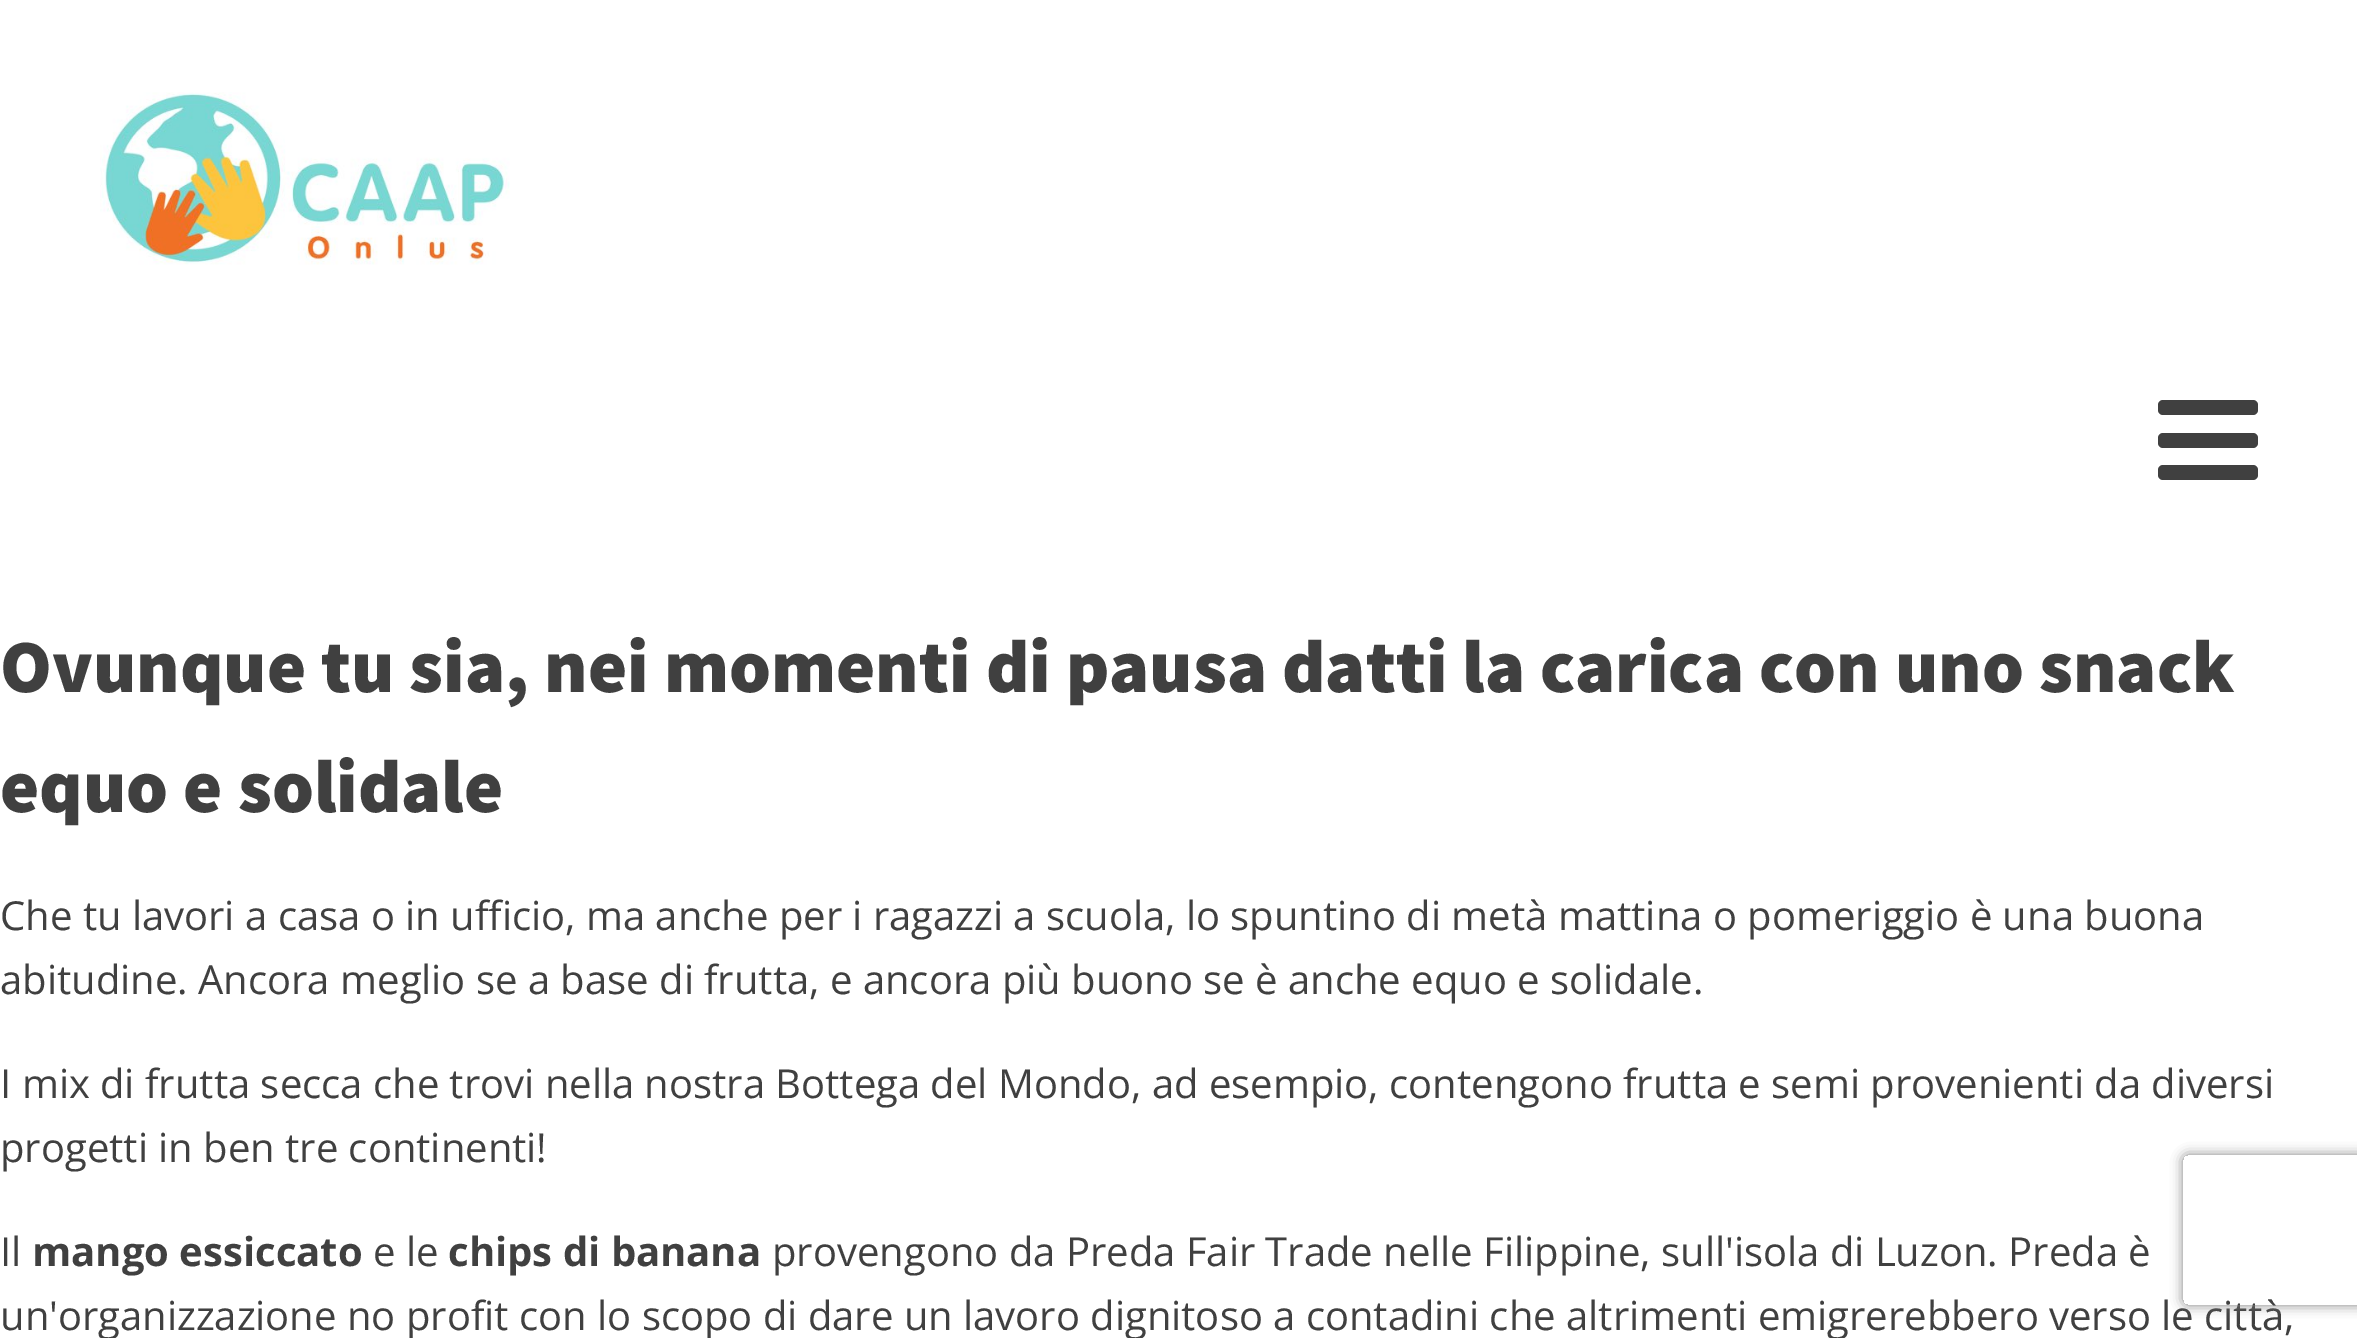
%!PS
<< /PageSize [2357 1338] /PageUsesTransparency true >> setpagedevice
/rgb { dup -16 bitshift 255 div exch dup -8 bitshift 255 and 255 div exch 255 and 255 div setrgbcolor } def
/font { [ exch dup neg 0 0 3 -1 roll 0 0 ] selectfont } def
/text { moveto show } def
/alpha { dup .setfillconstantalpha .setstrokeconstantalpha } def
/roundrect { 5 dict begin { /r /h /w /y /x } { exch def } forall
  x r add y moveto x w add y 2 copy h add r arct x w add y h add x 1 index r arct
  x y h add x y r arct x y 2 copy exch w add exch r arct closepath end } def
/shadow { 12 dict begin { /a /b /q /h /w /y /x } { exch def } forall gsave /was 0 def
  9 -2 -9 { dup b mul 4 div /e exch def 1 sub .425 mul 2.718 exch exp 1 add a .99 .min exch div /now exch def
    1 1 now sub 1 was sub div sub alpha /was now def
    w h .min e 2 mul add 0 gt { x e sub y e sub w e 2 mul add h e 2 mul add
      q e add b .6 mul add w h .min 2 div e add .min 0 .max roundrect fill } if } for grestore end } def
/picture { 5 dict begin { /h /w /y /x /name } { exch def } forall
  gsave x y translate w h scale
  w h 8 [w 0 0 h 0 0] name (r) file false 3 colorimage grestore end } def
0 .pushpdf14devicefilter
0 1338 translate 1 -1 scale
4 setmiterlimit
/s1 { /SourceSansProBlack-Black 75 font 16#404040 rgb } def
/s2 { /OpenSans-Regular 40 font 16#404040 rgb } def
/s3 { /OpenSans-Bold 40 font 16#404040 rgb } def
16#FFFFFF rgb
0 0 2357 1338 rectfill
(pic1.raw) 100 92 410 173 picture
16#404040 rgb
2158 400 100 15 5 roundrect fill
2158 433 100 15 5 roundrect fill
2158 465 100 15 5 roundrect fill
s1
(Ovunque tu sia, nei momenti di pausa datti la carica con uno snack) 0 692 text
(equo e solidale) 0 812 text
s2
(Che tu lavori a casa o in ufficio, ma anche per i ragazzi a scuola, lo spuntino di metà mattina o pomeriggio è una buona) 0 930 text
(abitudine. Ancora meglio se a base di frutta, e ancora più buono se è anche equo e solidale.) 0 994 text
(I mix di frutta secca che trovi nella nostra Bottega del Mondo, ad esempio, contengono frutta e semi provenienti da diversi) 0 1098 text
(progetti in ben tre continenti!) 0 1162 text
(Il) 0 1266 text
s3
(mango essiccato) 32 1266 text
s2
(e le) 373 1266 text
s3
(chips di banana) 448 1266 text
s2
(provengono da Preda Fair Trade nelle Filippine, sull'isola di Luzon. Preda è) 772 1266 text
(un'organizzazione no profit con lo scopo di dare un lavoro dignitoso a contadini che altrimenti emigrerebbero verso le città,) 0 1330 text
gsave
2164 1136 moveto 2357 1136 lineto 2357 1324 lineto 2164 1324 lineto closepath 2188 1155 moveto 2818 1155 lineto 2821 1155 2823 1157 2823 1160 curveto 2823 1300 lineto 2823 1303 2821 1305 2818 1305 curveto 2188 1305 lineto 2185 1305 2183 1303 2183 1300 curveto 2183 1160 lineto 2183 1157 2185 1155 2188 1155 curveto closepath eoclip newpath
16#808080 rgb
2183 1155 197 150 5 6 1 shadow
grestore
.poppdf14devicefilter showpage
